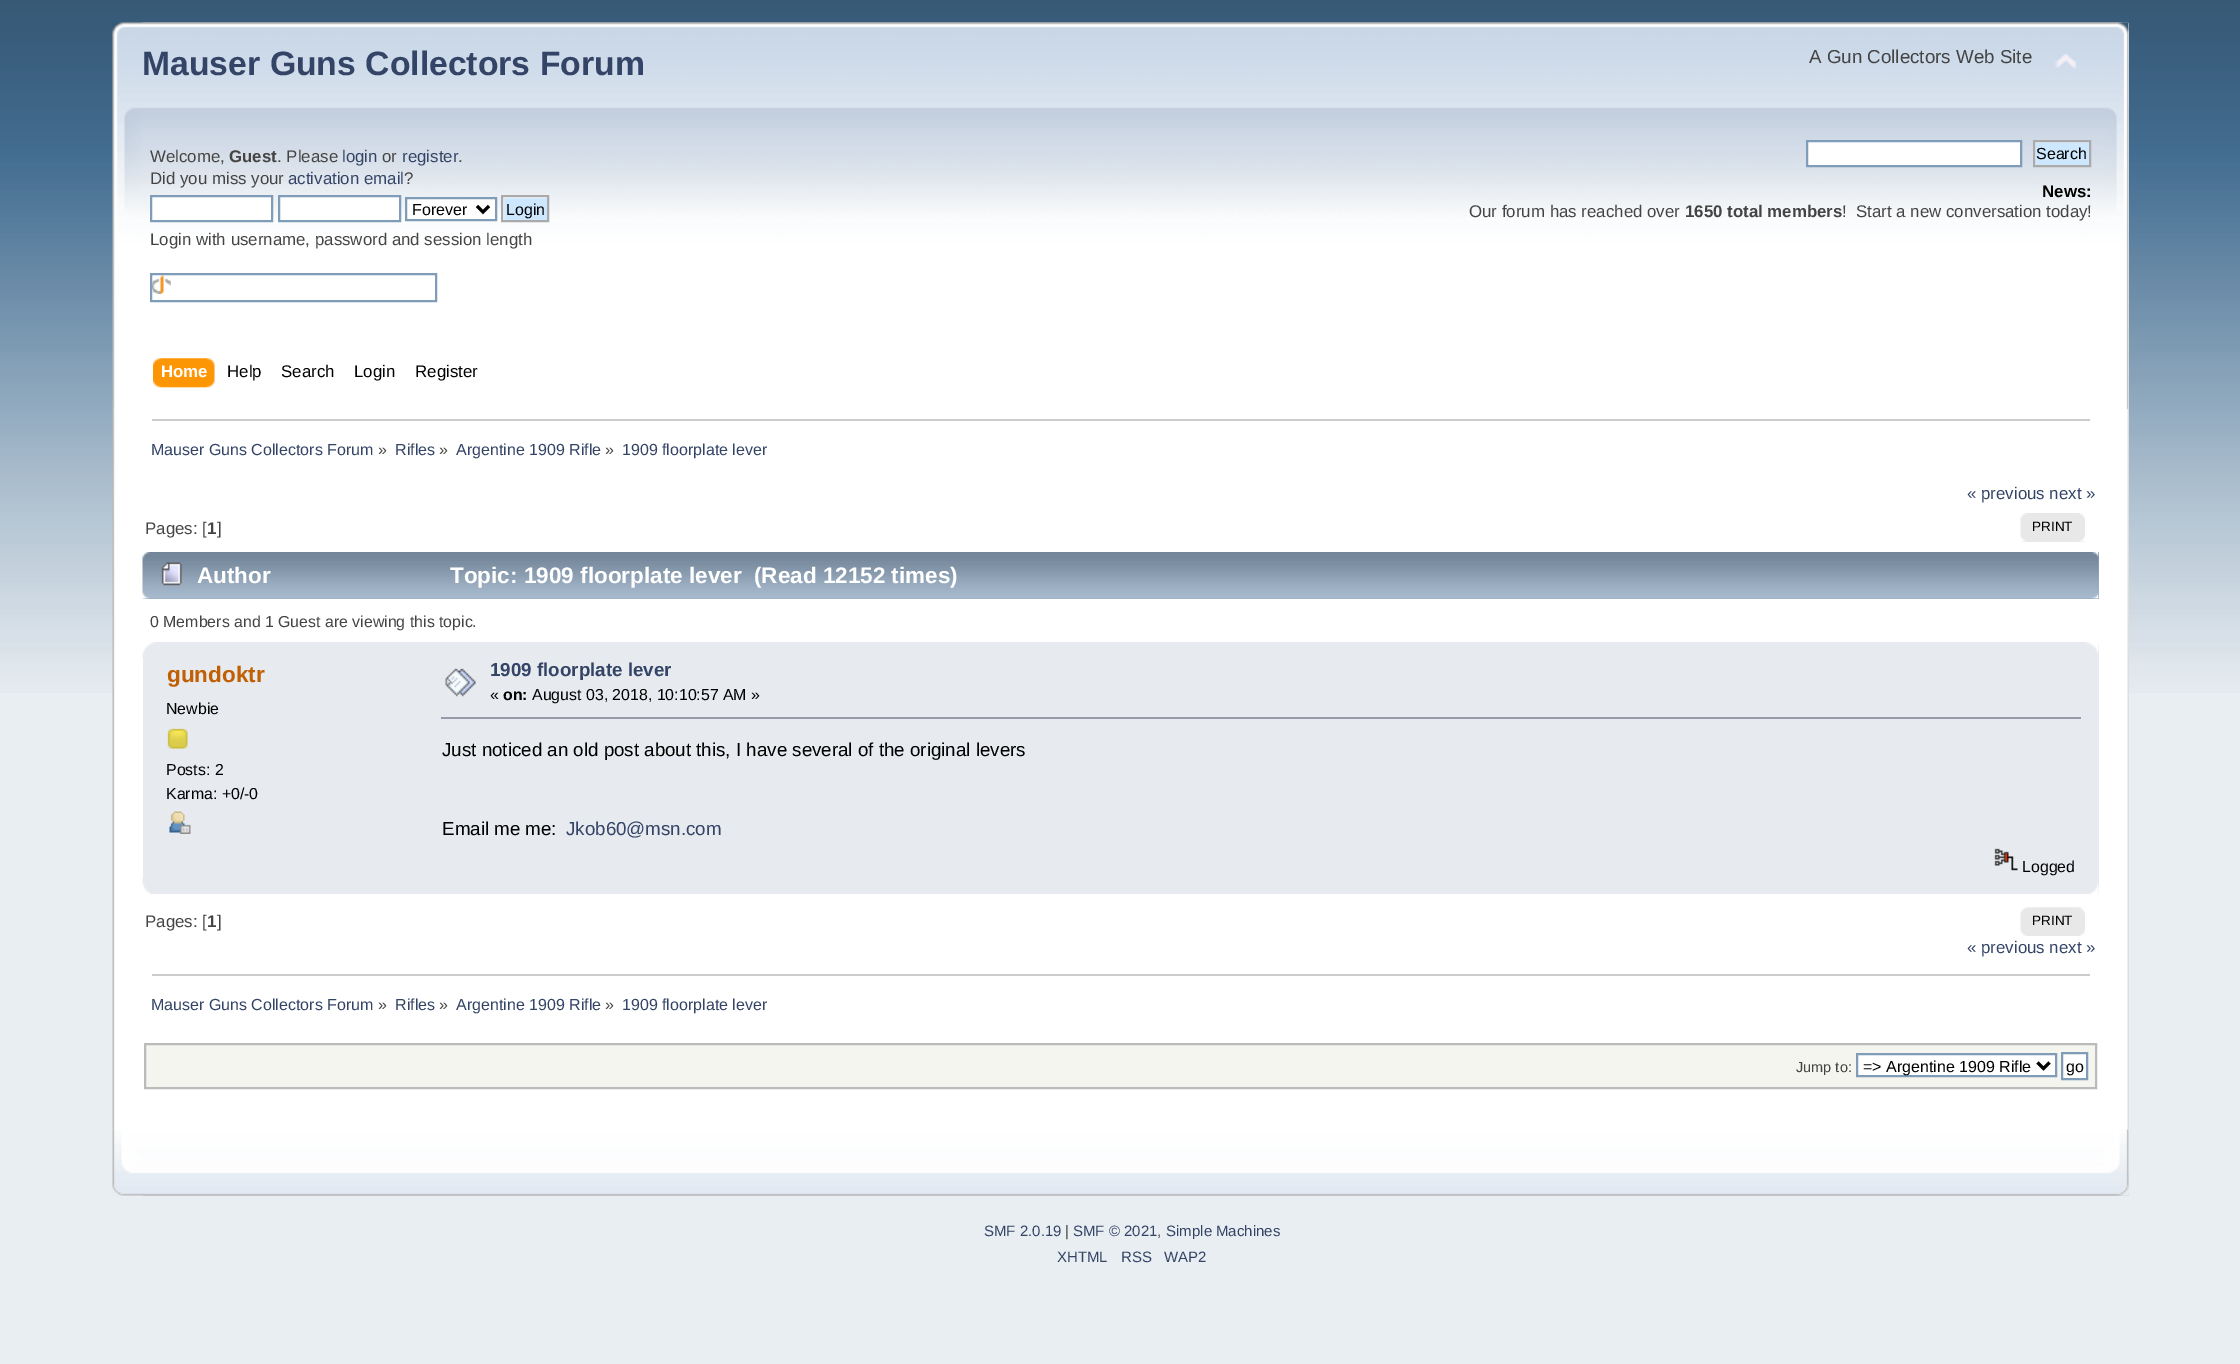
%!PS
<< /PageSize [2240 1364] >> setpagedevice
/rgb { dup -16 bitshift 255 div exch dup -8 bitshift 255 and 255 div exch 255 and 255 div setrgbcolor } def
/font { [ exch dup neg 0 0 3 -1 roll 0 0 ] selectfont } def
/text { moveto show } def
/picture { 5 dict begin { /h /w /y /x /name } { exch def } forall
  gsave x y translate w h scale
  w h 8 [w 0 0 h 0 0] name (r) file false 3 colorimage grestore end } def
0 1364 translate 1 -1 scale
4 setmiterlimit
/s1 { /LiberationSans-Bold 33.75 font 16#334466 rgb } def
/s2 { /LiberationSans-Regular 18.75 font 16#444444 rgb } def
/s3 { /LiberationSans-Regular 16.85 font 16#444444 rgb } def
/s4 { /LiberationSans-Bold 16.85 font 16#444444 rgb } def
/s5 { /LiberationSans-Regular 16.85 font 16#334466 rgb } def
/s6 { /LiberationSans-Regular 16 font 16#000000 rgb } def
/s7 { /LiberationSans-Bold 16.85 font 16#000000 rgb } def
/s8 { /LiberationSans-Bold 16.85 font 16#FFFFFF rgb } def
/s9 { /LiberationSans-Regular 16.85 font 16#000000 rgb } def
/s10 { /LiberationSans-Regular 16 font 16#334466 rgb } def
/s11 { /LiberationSans-Regular 16 font 16#444444 rgb } def
/s12 { /LiberationSans-Regular 13.5 font 16#000000 rgb } def
/s13 { /LiberationSans-Bold 22.5 font 16#FFFFFF rgb } def
/s14 { /LiberationSans-Regular 15.9 font 16#444444 rgb } def
/s15 { /LiberationSans-Bold 22.5 font 16#C06002 rgb } def
/s16 { /LiberationSans-Regular 15.9 font 16#000000 rgb } def
/s17 { /LiberationSans-Bold 18.75 font 16#334466 rgb } def
/s18 { /LiberationSans-Bold 15.9 font 16#000000 rgb } def
/s19 { /LiberationSans-Regular 18.75 font 16#000000 rgb } def
/s20 { /LiberationSans-Regular 18.75 font 16#334466 rgb } def
/s21 { /LiberationSans-Regular 14.5 font 16#444444 rgb } def
/s22 { /LiberationSans-Regular 15 font 16#334466 rgb } def
/s23 { /LiberationSans-Regular 15 font 16#444444 rgb } def
16#E9EEF2 rgb
0 0 2240 1364 rectfill
(pic1.raw) 0 0 2240 693 picture
16#FEFEFE rgb
113 23 2016 387 rectfill
(pic2.raw) 112 22 2017 388 picture
(pic3.raw) 142 22 1987 388 picture
s1
(Mauser Guns Collectors Forum) 142 75 text
s2
(A Gun Collectors Web Site) 1809 63 text
(pic4.raw) 2055 53 22 17 picture
s3
(Welcome,) 150 162 text
s4
(Guest) 229 162 text
s3
(. Please) 277 162 text
s5
(login) 342 162 text
s3
(or) 382 162 text
s5
(register) 402 162 text
s3
(.) 458 162 text
(Did you miss your) 150 184 text
s5
(activation email) 288 184 text
s3
(?) 404 184 text
16#FFFFFF rgb
151 196 moveto 272 196 lineto 272 221 lineto 151 221 lineto closepath gsave fill grestore
16#7F9DB9 rgb
2 setlinewidth
stroke
16#FFFFFF rgb
279 196 moveto 400 196 lineto 400 221 lineto 279 221 lineto closepath gsave fill grestore
16#7F9DB9 rgb
stroke
16#FFFFFF rgb
406 198 moveto 496 198 lineto 496 220 lineto 406 220 lineto closepath gsave fill grestore
16#7F9DB9 rgb
stroke
16#000000 rgb
3 setlinewidth
477 206 moveto 483 212 lineto 489 206 lineto stroke
s6
(Forever) 412 215 text
(pic5.raw) 503 197 44 23 picture
16#AAAAAA rgb
2 setlinewidth
502 196 46 25 rectstroke
s6
(Login) 506 215 text
s3
(Login with username, password and session length) 150 245 text
(pic6.raw) 152 275 19 19 picture
16#7F9DB9 rgb
151 274 285 27 rectstroke
16#FFFFFF rgb
1807 141 moveto 2021 141 lineto 2021 166 lineto 1807 166 lineto closepath gsave fill grestore
16#7F9DB9 rgb
stroke
(pic7.raw) 2035 142 54 23 picture
16#AAAAAA rgb
2034 141 56 25 rectstroke
s6
(Search) 2036 159 text
s7
(News:) 2042 197 text
s3
(Our forum has reached over) 1469 217 text
s4
(1650 total members) 1685 217 text
s3
(!  Start a new conversation today!) 1842 217 text
(pic8.raw) 160 358 55 30 picture
(pic9.raw) 153 358 54 30 picture
s8
(Home) 161 377 text
s9
(Help) 227 377 text
(Search) 281 377 text
(Login) 354 377 text
(Register) 415 377 text
16#FFFFFF rgb
113 410 2016 720 rectfill
(pic10.raw) 112 409 2017 721 picture
(pic11.raw) 2127 409 2 721 picture
16#CCCCCC rgb
152 419 1938 2 rectfill
s10
(Mauser Guns Collectors Forum) 151 455 text
s11
(») 378 455 text
s10
(Rifles) 395 455 text
s11
(») 439 455 text
s10
(Argentine 1909 Rifle) 456 455 text
s11
(») 605 455 text
s10
(1909 floorplate lever) 622 455 text
s5
(« previous next ») 1967 499 text
s3
(Pages: [) 145 534 text
s4
(1) 207 534 text
s3
(]) 217 534 text
16#E8E8E8 rgb
2021 513 64 29 rectfill
(pic12.raw) 2020 513 6 29 picture
(pic13.raw) 2079 513 6 29 picture
s12
(PRINT) 2032 531 text
16#99ABBF rgb
143 552 1956 47 rectfill
(pic14.raw) 142 552 1957 47 picture
(pic15.raw) 2092 552 7 47 picture
(pic16.raw) 161 562 21 24 picture
s13
(Author) 197 583 text
(Topic: 1909 floorplate lever  \(Read 12152 times\)) 450 583 text
s14
(0 Members and 1 Guest are viewing this topic.) 150 627 text
16#E7EAEF rgb
143 642 1956 252 rectfill
(pic17.raw) 142 642 13 17 picture
(pic18.raw) 2086 642 13 12 picture
s15
(gundoktr) 167 682 text
s16
(Newbie) 166 714 text
(pic19.raw) 167 728 21 21 picture
(Posts: 2) 166 775 text
(Karma: +0/-0) 166 799 text
(pic20.raw) 169 811 22 23 picture
(pic21.raw) 445 668 31 29 picture
s17
(1909 floorplate lever) 490 676 text
s16
(«) 490 700 text
s18
(on:) 503 700 text
s16
(August 03, 2018, 10:10:57 AM ») 532 700 text
16#9999AA rgb
441 717 1640 2 rectfill
s19
(Just noticed an old post about this, I have several of the original levers) 442 756 text
(Email me me:) 442 835 text
s20
(Jkob60@msn.com) 566 835 text
(pic22.raw) 1994 848 24 23 picture
s16
(Logged) 2022 872 text
(pic23.raw) 142 877 9 17 picture
(pic24.raw) 2090 883 9 11 picture
s3
(Pages: [) 145 927 text
s4
(1) 207 927 text
s3
(]) 217 927 text
(pic25.raw) 2020 907 65 29 picture
(pic26.raw) 2033 907 52 29 picture
s12
(PRINT) 2032 925 text
s5
(« previous next ») 1967 953 text
16#CCCCCC rgb
152 974 1938 2 rectfill
s10
(Mauser Guns Collectors Forum) 151 1010 text
s11
(») 378 1010 text
s10
(Rifles) 395 1010 text
s11
(») 439 1010 text
s10
(Argentine 1909 Rifle) 456 1010 text
s11
(») 605 1010 text
s10
(1909 floorplate lever) 622 1010 text
16#F5F5F0 rgb
145 1044 moveto 2096 1044 lineto 2096 1088 lineto 145 1088 lineto closepath gsave fill grestore
16#BBBBBB rgb
stroke
s21
(Jump to:) 1796 1072 text
16#FFFFFF rgb
1857 1054 moveto 2056 1054 lineto 2056 1076 lineto 1857 1076 lineto closepath gsave fill grestore
16#7F9DB9 rgb
stroke
16#000000 rgb
3 setlinewidth
2037.5 1062.5 moveto 2043.5 1068.5 lineto 2049.5 1062.5 lineto stroke
s6
(=> Argentine 1909 Rifle) 1863 1072 text
16#FFFFFF rgb
2062 1053 moveto 2087 1053 lineto 2087 1079 lineto 2062 1079 lineto closepath gsave fill grestore
16#7F9DB9 rgb
2 setlinewidth
stroke
s6
(go) 2066 1072 text
(pic27.raw) 112 1129 2017 67 picture
(pic28.raw) 142 1129 1987 67 picture
s22
(SMF 2.0.19) 984 1236 text
s23
(|) 1065 1236 text
s22
(SMF © 2021) 1073 1236 text
s23
(,) 1157 1236 text
s22
(Simple Machines) 1166 1236 text
(XHTML) 1057 1262 text
(RSS) 1121 1262 text
(WAP2) 1164 1262 text
showpage
